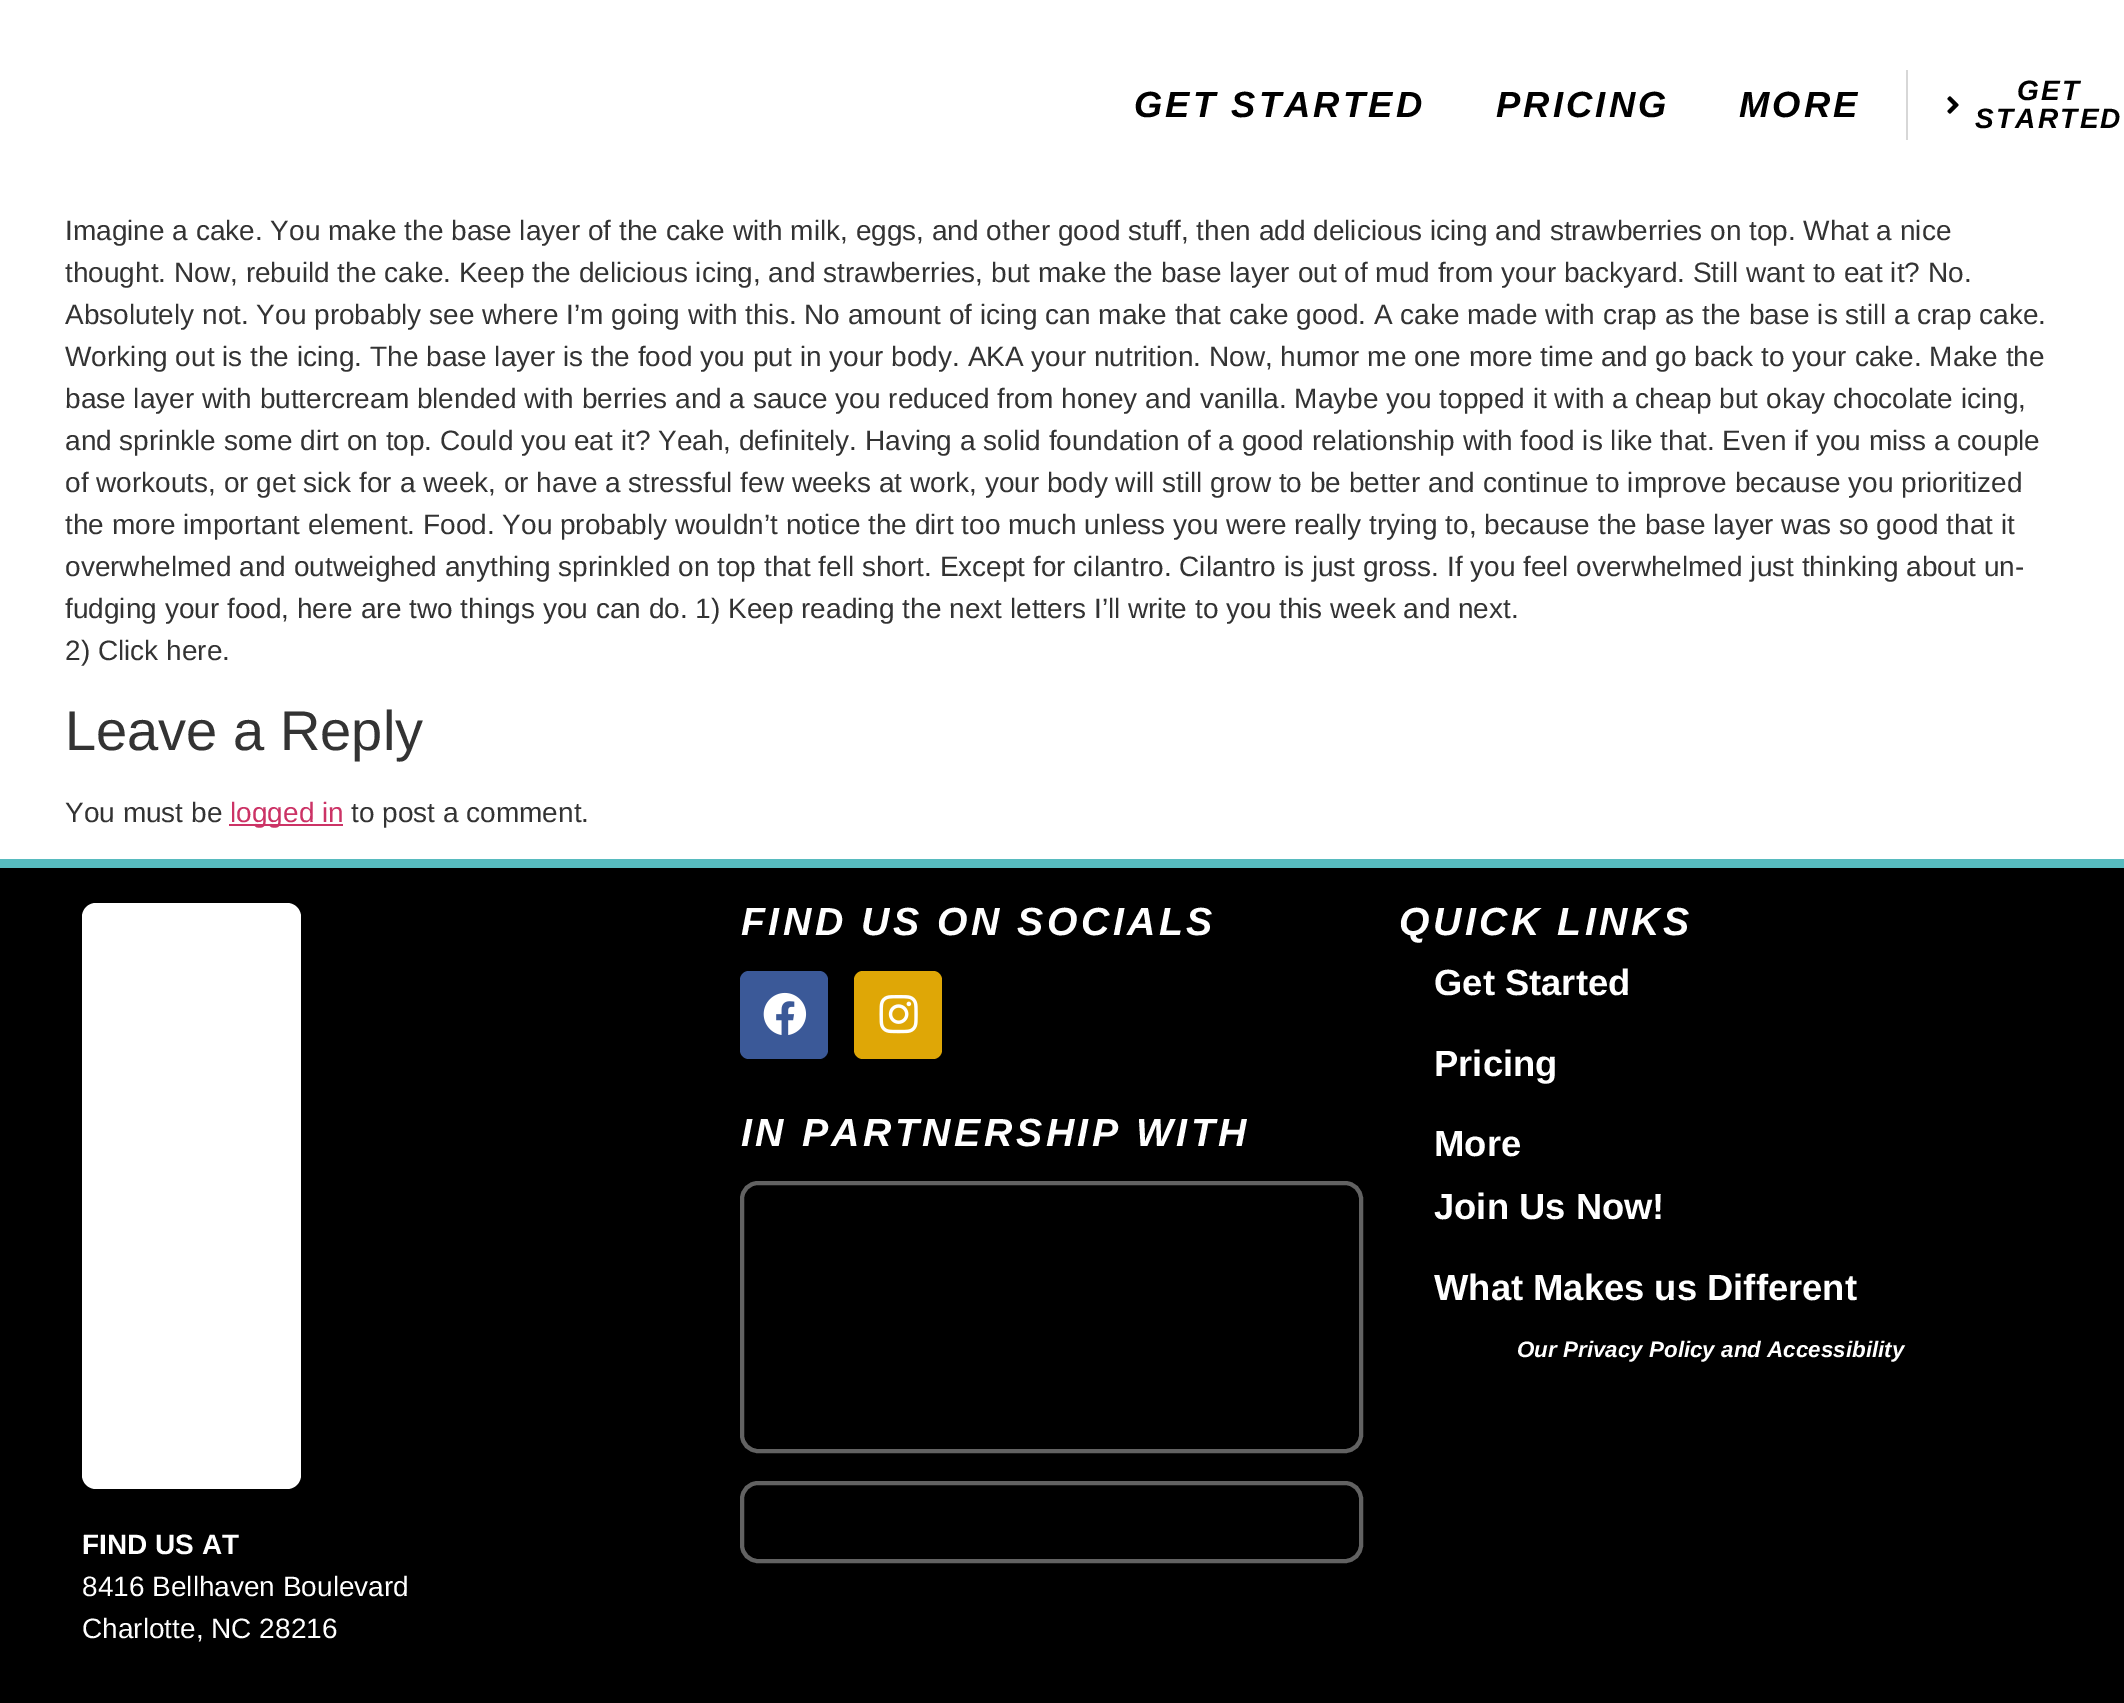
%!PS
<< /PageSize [2124 1703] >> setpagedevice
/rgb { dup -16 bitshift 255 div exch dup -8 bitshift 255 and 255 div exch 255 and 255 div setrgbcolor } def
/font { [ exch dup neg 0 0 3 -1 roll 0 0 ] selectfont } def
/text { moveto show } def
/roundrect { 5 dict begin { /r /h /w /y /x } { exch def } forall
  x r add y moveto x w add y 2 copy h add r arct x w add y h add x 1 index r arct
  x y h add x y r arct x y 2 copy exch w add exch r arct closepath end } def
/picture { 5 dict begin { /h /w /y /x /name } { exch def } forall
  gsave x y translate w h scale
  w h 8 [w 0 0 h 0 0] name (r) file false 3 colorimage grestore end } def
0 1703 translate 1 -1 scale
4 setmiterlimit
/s1 { /LiberationSans-Regular 28 font 16#333333 rgb } def
/s2 { /LiberationSans-Regular 56 font 16#333333 rgb } def
/s3 { /LiberationSans-Regular 28 font 16#CC3366 rgb } def
/s4 { /LiberationSans-Bold 36.4 font 16#FFFFFF rgb } def
/s5 { /LiberationSans-BoldItalic 22.4 font 16#FFFFFF rgb } def
/s6 { /LiberationSans-Bold 28 font 16#FFFFFF rgb } def
/s7 { /LiberationSans-Regular 28 font 16#FFFFFF rgb } def
16#FFFFFF rgb
0 0 2124 1703 rectfill
/LiberationSans-BoldItalic 36.4 font
16#000000 rgb
1134 117 moveto 3.1 0 (GET STARTED) ashow
1496 117 moveto 3.1 0 (PRICING) ashow
1739 117 moveto 3.1 0 (MORE) ashow
16#D7D7D7 rgb
1906 70 2 70 rectfill
(pic1.raw) 1947 96 12 18 picture
/LiberationSans-BoldItalic 28 font
16#000000 rgb
2017 100 moveto 2.25 0 (GET) ashow
1975 128 moveto 2.25 0 (STARTED) ashow
s1
(Imagine a cake. You make the base layer of the cake with milk, eggs, and other good stuff, then add delicious icing and strawberries on top. What a nice) 65 240 text
(thought. Now, rebuild the cake. Keep the delicious icing, and strawberries, but make the base layer out of mud from your backyard. Still want to eat it? No.) 65 282 text
(Absolutely not. You probably see where I’m going with this. No amount of icing can make that cake good. A cake made with crap as the base is still a crap cake.) 65 324 text
(Working out is the icing. The base layer is the food you put in your body. AKA your nutrition. Now, humor me one more time and go back to your cake. Make the) 65 366 text
(base layer with buttercream blended with berries and a sauce you reduced from honey and vanilla. Maybe you topped it with a cheap but okay chocolate icing,) 65 408 text
(and sprinkle some dirt on top. Could you eat it? Yeah, definitely. Having a solid foundation of a good relationship with food is like that. Even if you miss a couple) 65 450 text
(of workouts, or get sick for a week, or have a stressful few weeks at work, your body will still grow to be better and continue to improve because you prioritized) 65 492 text
(the more important element. Food. You probably wouldn’t notice the dirt too much unless you were really trying to, because the base layer was so good that it) 65 534 text
(overwhelmed and outweighed anything sprinkled on top that fell short. Except for cilantro. Cilantro is just gross. If you feel overwhelmed just thinking about un-) 65 576 text
(fudging your food, here are two things you can do. 1\) Keep reading the next letters I’ll write to you this week and next.) 65 618 text
(2\) Click here.) 65 660 text
s2
(Leave a Reply) 65 750 text
s1
(You must be) 65 822 text
16#CC3366 rgb
229 824 114 2 rectfill
(logged in) 230 822 text
s1
(to post a comment.) 351 822 text
16#000000 rgb
0 868 2124 835 rectfill
16#57BBBF rgb
0 859 2124 9 rectfill
/LiberationSans-BoldItalic 39.25 font
16#FFFFFF rgb
741 935 moveto 3.5 0 (FIND US ON SOCIALS) ashow
16#3B5998 rgb
740 971 88 88 9 roundrect fill
(pic2.raw) 763 992 44 43 picture
16#DFA706 rgb
854 971 88 88 9 roundrect fill
(pic3.raw) 879 995 39 39 picture
16#FFFFFF rgb
741 1146 moveto 3.5 0 (IN PARTNERSHIP WITH) ashow
16#626262 rgb
4 setlinewidth
742 1183 619 268 16 roundrect stroke
742 1483 619 78 16 roundrect stroke
16#FFFFFF rgb
1399 935 moveto 3.5 0 (QUICK LINKS) ashow
s4
(Get Started) 1434 995 text
(Pricing) 1434 1076 text
(More) 1434 1156 text
(Join Us Now!) 1434 1219 text
(What Makes us Different) 1434 1300 text
s5
(Our Privacy Policy and Accessibility) 1517 1357 text
82 903 219 586 14 roundrect fill
s6
(FIND US AT) 82 1554 text
s7
(8416 Bellhaven Boulevard) 82 1596 text
(Charlotte, NC 28216) 82 1638 text
showpage
